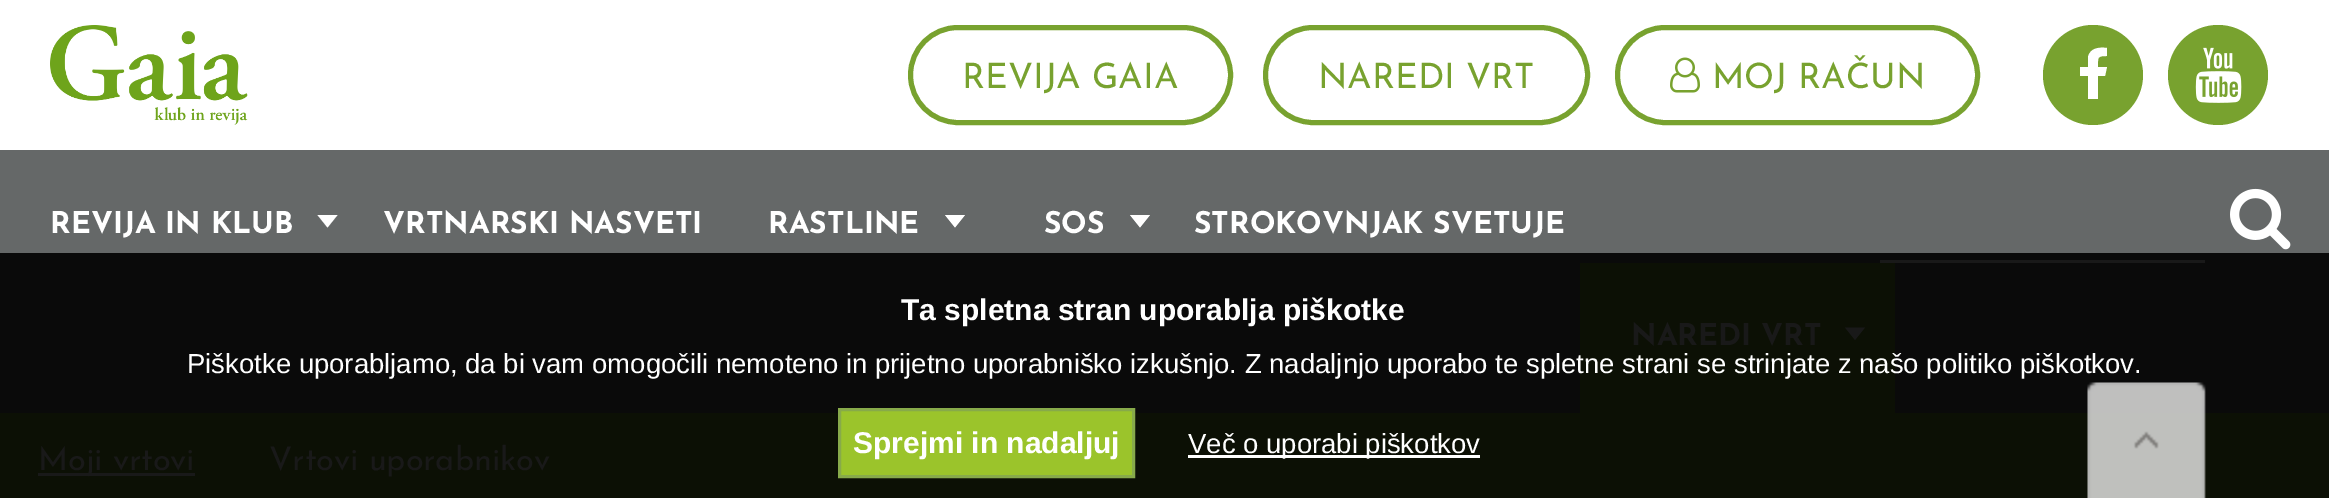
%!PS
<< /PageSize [2329 498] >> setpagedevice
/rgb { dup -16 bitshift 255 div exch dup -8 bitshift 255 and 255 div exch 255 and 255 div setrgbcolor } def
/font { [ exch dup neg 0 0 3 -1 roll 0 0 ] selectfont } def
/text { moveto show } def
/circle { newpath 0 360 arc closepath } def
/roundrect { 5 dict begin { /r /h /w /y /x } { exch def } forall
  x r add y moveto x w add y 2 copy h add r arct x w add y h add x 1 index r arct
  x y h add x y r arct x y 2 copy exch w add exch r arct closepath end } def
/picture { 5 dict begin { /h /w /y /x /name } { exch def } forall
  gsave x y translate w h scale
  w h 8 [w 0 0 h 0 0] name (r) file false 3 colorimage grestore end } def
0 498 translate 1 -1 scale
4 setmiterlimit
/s1 { /JosefinSans-Regular 35 font 16#78A22F rgb } def
/s2 { /JosefinSans-Bold 30 font 16#FFFFFF rgb } def
/s3 { /JosefinSans-Bold 30 font 16#191919 rgb } def
/s4 { /JosefinSans-Regular 32.5 font 16#191919 rgb } def
/s5 { /LiberationSans-Bold 30 font 16#FFFFFF rgb } def
/s6 { /LiberationSans-Regular 27.5 font 16#FFFFFF rgb } def
16#656868 rgb
0 0 2329 498 rectfill
16#FFFFFF rgb
0 0 2329 150 rectfill
(pic1.raw) 50 25 198 100 picture
16#78A22F rgb
5 setlinewidth
910.5 27.5 320 95 47.5 roundrect stroke
s1
(REVIJA GAIA) 962 88 text
1265.5 27.5 322 95 47.5 roundrect stroke
(NAREDI VRT) 1318 88 text
1617.5 27.5 360 95 47.5 roundrect stroke
(pic2.raw) 1670 57 30 36 picture
(MOJ RAČUN) 1712 88 text
2093 75 50 circle fill
16#FFFFFF rgb
2107 48 moveto 2107 56 lineto 2097 56 2098 57 2098 67 curveto 2107 67 lineto 2105 76 lineto 2098 76 lineto 2098 99 lineto 2088 99 lineto 2088 76 lineto 2080 76 lineto 2080 67 lineto 2088 67 lineto 2088 57 lineto 2090 48 2099 47 2107 48 curveto closepath fill
16#78A22F rgb
2218 75 50 circle fill
(pic3.raw) 2195 47 47 56 picture
16#0A0A0A rgb
0 253 2329 160 rectfill
s2
(REVIJA IN KLUB) 50 233 text
317.5 215 moveto 337.5 215 lineto 327.5 227.5 lineto closepath fill
(VRTNARSKI NASVETI) 383 233 text
(RASTLINE) 768 233 text
945 215 moveto 965 215 lineto 955 227.5 lineto closepath fill
(SOS) 1044 233 text
1130 215 moveto 1150 215 lineto 1140 227.5 lineto closepath fill
(STROKOVNJAK SVETUJE) 1194 233 text
16#0C1005 rgb
1580 263 315 150 rectfill
s3
(NAREDI VRT) 1631 345 text
1845 327.5 moveto 1865 327.5 lineto 1855 340 lineto closepath fill
(pic4.raw) 2230 188 61 62 picture
1880 260 325 3 rectfill
16#0C1005 rgb
0 413 2329 85 rectfill
16#191919 rgb
38 473 157 3 rectfill
s4
(Moji vrtovi) 38 470 text
(Vrtovi uporabnikov) 269 470 text
s5
(Ta spletna stran uporablja piškotke) 901 320 text
s6
(Piškotke uporabljamo, da bi vam omogočili nemoteno in prijetno uporabniško izkušnjo. Z nadaljnjo uporabo te spletne strani se strinjate z našo politiko piškotkov.) 187 373 text
16#9BC42B rgb
839.5 409.5 moveto 1133.5 409.5 lineto 1133.5 476.5 lineto 839.5 476.5 lineto closepath gsave fill grestore
16#87AA4A rgb
3 setlinewidth
stroke
s5
(Sprejmi in nadaljuj) 853 453 text
1188 455 292 3 rectfill
s6
(Več o uporabi piškotkov) 1188 453 text
(pic5.raw) 2087 382 119 116 picture
showpage
